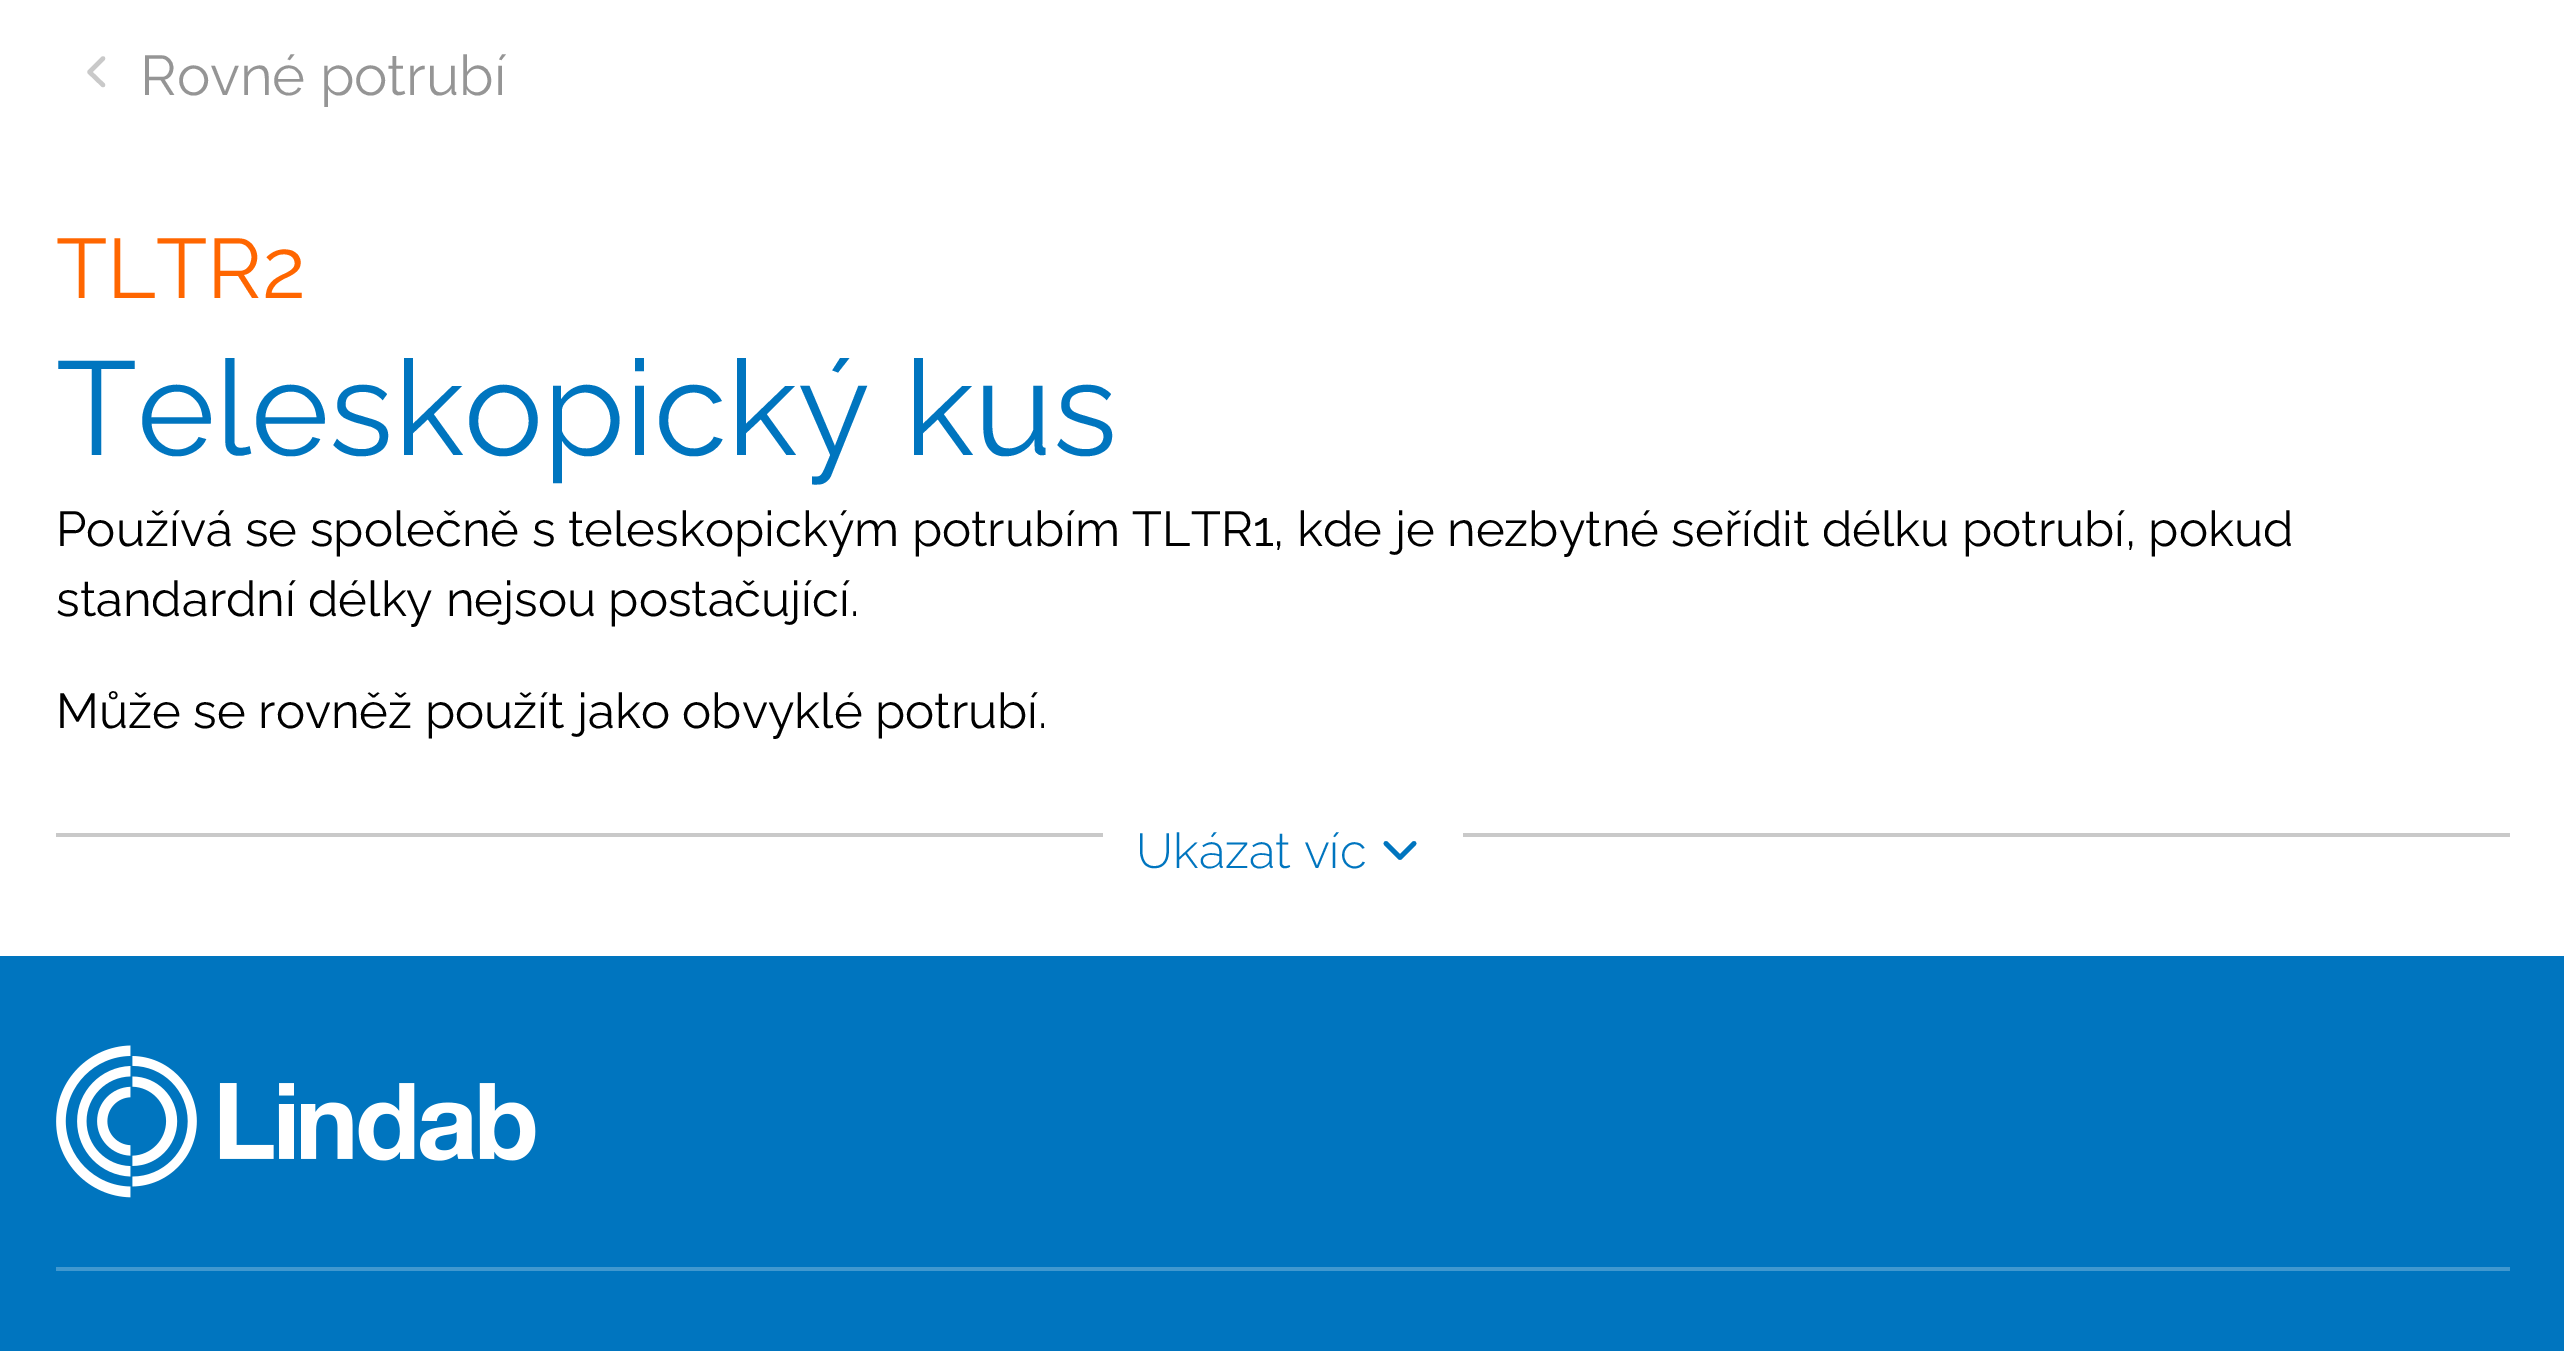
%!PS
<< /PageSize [2564 1351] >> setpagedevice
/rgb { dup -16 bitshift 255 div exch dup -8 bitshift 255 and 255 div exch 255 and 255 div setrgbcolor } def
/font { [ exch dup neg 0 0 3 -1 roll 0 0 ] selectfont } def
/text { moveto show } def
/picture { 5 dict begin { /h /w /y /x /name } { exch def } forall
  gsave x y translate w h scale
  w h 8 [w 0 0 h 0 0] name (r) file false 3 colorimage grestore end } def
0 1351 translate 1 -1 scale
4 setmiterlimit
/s1 { /Raleway-Thin 56 font 16#959595 rgb } def
/s2 { /Raleway-Thin 84 font 16#FF6600 rgb } def
/s3 { /Raleway-Thin 133 font 16#0075BF rgb } def
/s4 { /Raleway-Thin 49 font 16#000000 rgb } def
/s5 { /Raleway-Light 49 font 16#0075BF rgb } def
16#FFFFFF rgb
0 0 2564 1351 rectfill
16#C9C9C9 rgb
4.4 setlinewidth
1 setlinecap
1 setlinejoin
103 85 moveto 89.5 72 lineto 103 58.5 lineto stroke
s1
(Rovné potrubí) 140 95 text
s2
(TLTR2) 56 298 text
s3
(Teleskopický kus) 56 455 text
s4
(Používá se společně s teleskopickým potrubím TLTR1, kde je nezbytné seřídit délku potrubí, pokud) 56 546 text
(standardní délky nejsou postačující.) 56 616 text
(Může se rovněž použít jako obvyklé potrubí.) 56 728 text
16#C9C9C9 rgb
56 833 2454 4 rectfill
16#FFFFFF rgb
1103 833 360 4 rectfill
s5
(Ukázat víc) 1136 868 text
4.7 setlinewidth
1386 843.5 moveto 1400 857.5 lineto 1414 843.5 lineto stroke
0 956 2564 395 rectfill
(pic1.raw) 56 1045 480 153 picture
16#4098CF rgb
56 1267 2454 4 rectfill
showpage
